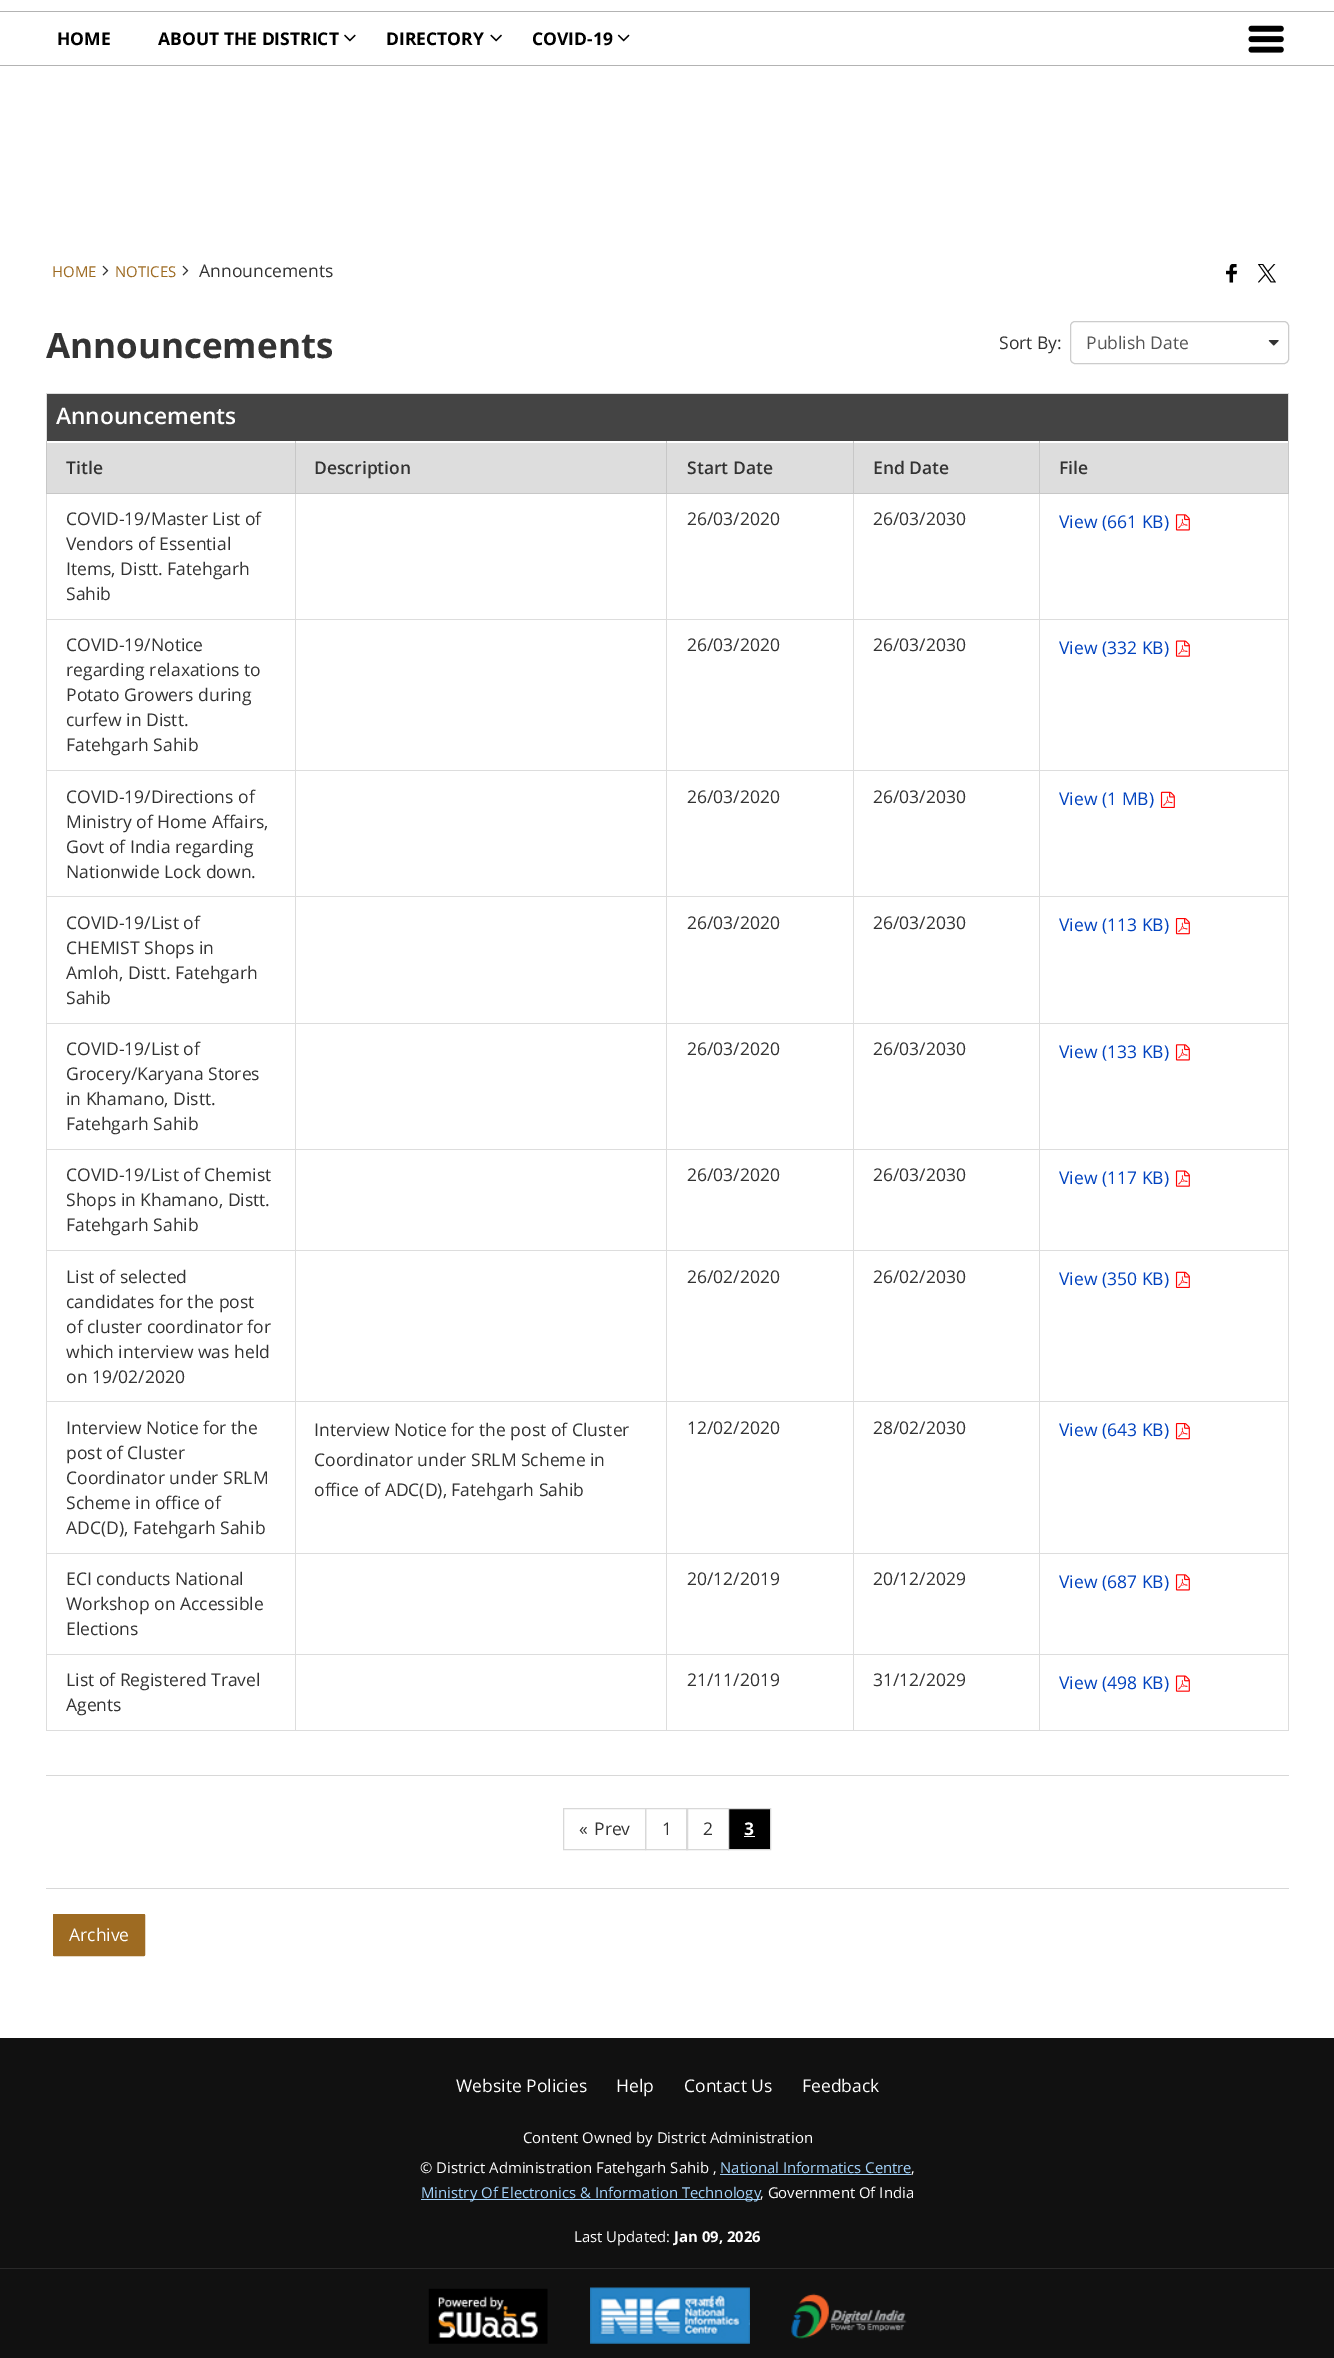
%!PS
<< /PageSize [1334 2358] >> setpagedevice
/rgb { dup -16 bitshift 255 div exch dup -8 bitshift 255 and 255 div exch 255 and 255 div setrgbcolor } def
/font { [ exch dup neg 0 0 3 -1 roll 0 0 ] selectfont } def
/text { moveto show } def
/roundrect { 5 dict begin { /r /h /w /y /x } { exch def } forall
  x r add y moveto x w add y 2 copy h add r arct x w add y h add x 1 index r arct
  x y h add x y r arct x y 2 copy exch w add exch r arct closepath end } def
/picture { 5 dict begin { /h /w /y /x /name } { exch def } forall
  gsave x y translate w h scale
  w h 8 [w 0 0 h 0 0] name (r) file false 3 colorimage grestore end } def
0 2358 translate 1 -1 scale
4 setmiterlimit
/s1 { /OpenSans-Bold 17.5 font 16#000000 rgb } def
/s2 { /OpenSans-Regular 14.9 font 16#9E6B22 rgb } def
/s3 { /OpenSans-Regular 17.5 font 16#333333 rgb } def
/s4 { /OpenSans-Bold 35 font 16#333333 rgb } def
/s5 { /OpenSans-Regular 17.5 font 16#555555 rgb } def
/s6 { /OpenSans-SemiBold 22.75 font 16#FFFFFF rgb } def
/s7 { /OpenSans-SemiBold 17.5 font 16#333333 rgb } def
/s8 { /OpenSans-Regular 17.5 font 16#0042BF rgb } def
/s9 { /OpenSans-Bold 17.5 font 16#FFFFFF rgb } def
/s10 { /OpenSans-Regular 17.5 font 16#FFFFFF rgb } def
/s11 { /OpenSans-Regular 14.9 font 16#FFFFFF rgb } def
/s12 { /OpenSans-Regular 14.9 font 16#A3D2F9 rgb } def
/s13 { /OpenSans-Bold 14.9 font 16#FFFFFF rgb } def
16#FFFFFF rgb
0 0 1334 2358 rectfill
16#B3B3B3 rgb
0 11 1334 1 rectfill
0 65 1334 1 rectfill
s1
(HOME) 57 45 text
(ABOUT THE DISTRICT) 158 45 text
(pic1.raw) 344 34 12 8 picture
(DIRECTORY) 386 45 text
(pic2.raw) 490 34 12 8 picture
(COVID-19) 532 45 text
(pic3.raw) 617 34 13 8 picture
(pic4.raw) 1248 25 36 28 picture
s2
(HOME) 52 277 text
(pic5.raw) 102 265 7 11 picture
(NOTICES) 115 277 text
(pic5.raw) 182 265 7 11 picture
s3
(Announcements) 199 277 text
(pic6.raw) 1226 264 12 19 picture
(pic7.raw) 1258 264 18 19 picture
s4
(Announcements) 46 358 text
s3
(Sort By:) 999 349 text
(pic8.raw) 1268 340 11 6 picture
16#CCCCCC rgb
1070.5 321.5 218 42 4.5 roundrect stroke
s5
(Publish Date) 1086 349 text
16#DDDDDD rgb
46 393 1243 1 rectfill
1288 393 1 1338 rectfill
46 1730 1243 1 rectfill
46 393 1 1338 rectfill
16#444444 rgb
47 394 1241 47 rectfill
s6
(Announcements) 56 424 text
16#DDDDDD rgb
47 443 248 50 rectfill
16#C7C7C7 rgb
1288 441 1 53 rectfill
16#DDDDDD rgb
46 619 1243 1 rectfill
46 770 1243 1 rectfill
46 896 1243 1 rectfill
46 1023 1243 1 rectfill
46 1149 1243 1 rectfill
46 1250 1243 1 rectfill
46 1401 1243 1 rectfill
46 1553 1243 1 rectfill
46 1654 1243 1 rectfill
1039 1654 1 77 rectfill
1039 1553 1 102 rectfill
1039 1401 1 153 rectfill
1039 1250 1 153 rectfill
1039 1149 1 102 rectfill
1039 1023 1 127 rectfill
1039 896 1 128 rectfill
1039 770 1 128 rectfill
1039 493 1 278 rectfill
16#C7C7C7 rgb
1039 493 250 1 rectfill
1039 441 1 53 rectfill
16#DDDDDD rgb
853 1654 1 77 rectfill
853 1553 1 102 rectfill
853 1401 1 153 rectfill
853 1250 1 153 rectfill
853 1149 1 102 rectfill
853 1023 1 127 rectfill
853 896 1 128 rectfill
853 770 1 128 rectfill
853 493 1 278 rectfill
16#C7C7C7 rgb
853 493 187 1 rectfill
853 441 1 53 rectfill
16#DDDDDD rgb
666 1654 1 77 rectfill
666 1553 1 102 rectfill
666 1401 1 153 rectfill
666 1250 1 153 rectfill
666 1149 1 102 rectfill
666 1023 1 127 rectfill
666 896 1 128 rectfill
666 770 1 128 rectfill
666 493 1 278 rectfill
16#C7C7C7 rgb
666 493 188 1 rectfill
16#DDDDDD rgb
296 443 557 50 rectfill
16#C7C7C7 rgb
666 441 1 53 rectfill
16#DDDDDD rgb
295 1654 1 77 rectfill
295 1553 1 102 rectfill
295 1401 1 153 rectfill
295 1250 1 153 rectfill
295 1149 1 102 rectfill
295 1023 1 127 rectfill
295 896 1 128 rectfill
295 770 1 128 rectfill
295 493 1 278 rectfill
16#C7C7C7 rgb
295 493 373 1 rectfill
295 441 1 53 rectfill
46 493 250 1 rectfill
46 441 1 53 rectfill
s7
(Title) 66 474 text
(Description) 314 474 text
(Start Date) 687 474 text
16#DDDDDD rgb
854 443 185 50 rectfill
s7
(End Date) 873 474 text
16#DDDDDD rgb
1040 443 248 50 rectfill
s7
(File) 1059 474 text
s3
(COVID-19/Master List of) 66 525 text
(Vendors of Essential) 66 550 text
(Items, Distt. Fatehgarh) 66 575 text
(Sahib) 66 600 text
(26/03/2020) 687 525 text
(26/03/2030) 873 525 text
s8
(View \(661 KB\)) 1059 528 text
(pic9.raw) 1175 514 15 17 picture
s3
(COVID-19/Notice) 66 651 text
(regarding relaxations to) 66 676 text
(Potato Growers during) 66 701 text
(curfew in Distt.) 66 726 text
(Fatehgarh Sahib) 66 751 text
(26/03/2020) 687 651 text
(26/03/2030) 873 651 text
s8
(View \(332 KB\)) 1059 654 text
(pic10.raw) 1175 640 15 17 picture
s3
(COVID-19/Directions of) 66 803 text
(Ministry of Home Affairs,) 66 828 text
(Govt of India regarding) 66 853 text
(Nationwide Lock down.) 66 878 text
(26/03/2020) 687 803 text
(26/03/2030) 873 803 text
s8
(View \(1 MB\)) 1059 805 text
(pic11.raw) 1160 791 15 17 picture
s3
(COVID-19/List of) 66 929 text
(CHEMIST Shops in) 66 954 text
(Amloh, Distt. Fatehgarh) 66 979 text
(Sahib) 66 1004 text
(26/03/2020) 687 929 text
(26/03/2030) 873 929 text
s8
(View \(113 KB\)) 1059 931 text
(pic12.raw) 1175 918 15 17 picture
s3
(COVID-19/List of) 66 1055 text
(Grocery/Karyana Stores) 66 1080 text
(in Khamano, Distt.) 66 1105 text
(Fatehgarh Sahib) 66 1130 text
(26/03/2020) 687 1055 text
(26/03/2030) 873 1055 text
s8
(View \(133 KB\)) 1059 1058 text
(pic9.raw) 1175 1044 15 17 picture
s3
(COVID-19/List of Chemist) 66 1181 text
(Shops in Khamano, Distt.) 66 1206 text
(Fatehgarh Sahib) 66 1231 text
(26/03/2020) 687 1181 text
(26/03/2030) 873 1181 text
s8
(View \(117 KB\)) 1059 1184 text
(pic10.raw) 1175 1170 15 17 picture
s3
(List of selected) 66 1283 text
(candidates for the post) 66 1308 text
(of cluster coordinator for) 66 1333 text
(which interview was held) 66 1358 text
(on 19/02/2020) 66 1383 text
(26/02/2020) 687 1283 text
(26/02/2030) 873 1283 text
s8
(View \(350 KB\)) 1059 1285 text
(pic11.raw) 1175 1271 15 17 picture
s3
(Interview Notice for the) 66 1434 text
(post of Cluster) 66 1459 text
(Coordinator under SRLM) 66 1484 text
(Scheme in office of) 66 1509 text
(ADC\(D\), Fatehgarh Sahib) 66 1534 text
(Interview Notice for the post of Cluster) 314 1436 text
(Coordinator under SRLM Scheme in) 314 1466 text
(office of ADC\(D\), Fatehgarh Sahib) 314 1496 text
(12/02/2020) 687 1434 text
(28/02/2030) 873 1434 text
s8
(View \(643 KB\)) 1059 1436 text
(pic12.raw) 1175 1423 15 17 picture
s3
(ECI conducts National) 66 1585 text
(Workshop on Accessible) 66 1610 text
(Elections) 66 1635 text
(20/12/2019) 687 1585 text
(20/12/2029) 873 1585 text
s8
(View \(687 KB\)) 1059 1588 text
(pic9.raw) 1175 1574 15 17 picture
s3
(List of Registered Travel) 66 1686 text
(Agents) 66 1711 text
(21/11/2019) 687 1686 text
(31/12/2029) 873 1686 text
s8
(View \(498 KB\)) 1059 1689 text
(pic10.raw) 1175 1675 15 17 picture
16#D8D8D8 rgb
46 1775 1243 1 rectfill
46 1888 1243 1 rectfill
563.5 1808.5 82 41 rectstroke
s3
(«) 579 1835 text
(Prev) 594 1835 text
16#D8D8D8 rgb
645.5 1808.5 42 41 rectstroke
s3
(1) 662 1835 text
16#D8D8D8 rgb
686.5 1808.5 42 41 rectstroke
s3
(2) 703 1835 text
16#000000 rgb
728.5 1808.5 moveto 770.5 1808.5 lineto 770.5 1849.5 lineto 728.5 1849.5 lineto closepath gsave fill grestore
16#D8D8D8 rgb
stroke
s9
(3) 744 1835 text
744 1836 11 1 rectfill
16#9E6B22 rgb
53.5 1914.5 91 41 0.5 roundrect gsave fill grestore
stroke
s10
(Archive) 69 1941 text
16#111111 rgb
0 2038 1334 320 rectfill
s10
(Website Policies) 456 2092 text
(Help) 616 2092 text
(Contact Us) 684 2092 text
(Feedback) 802 2092 text
s11
(Content Owned by District Administration) 523 2143 text
(© District Administration Fatehgarh Sahib ,) 420 2173 text
s12
(National Informatics Centre) 720 2173 text
720 2174 191 1 rectfill
s11
(,) 911 2173 text
16#A3D2F9 rgb
421 2199 339 1 rectfill
(Ministry Of Electronics & Information Technology) 421 2198 text
s11
(, Government Of India) 760 2198 text
(Last Updated:) 574 2242 text
s13
(Jan 09, 2026) 674 2242 text
16#292929 rgb
0 2268 1334 1 rectfill
(pic13.raw) 428 2288 120 56 picture
(pic14.raw) 590 2287 160 57 picture
(pic15.raw) 791 2293 116 46 picture
showpage
